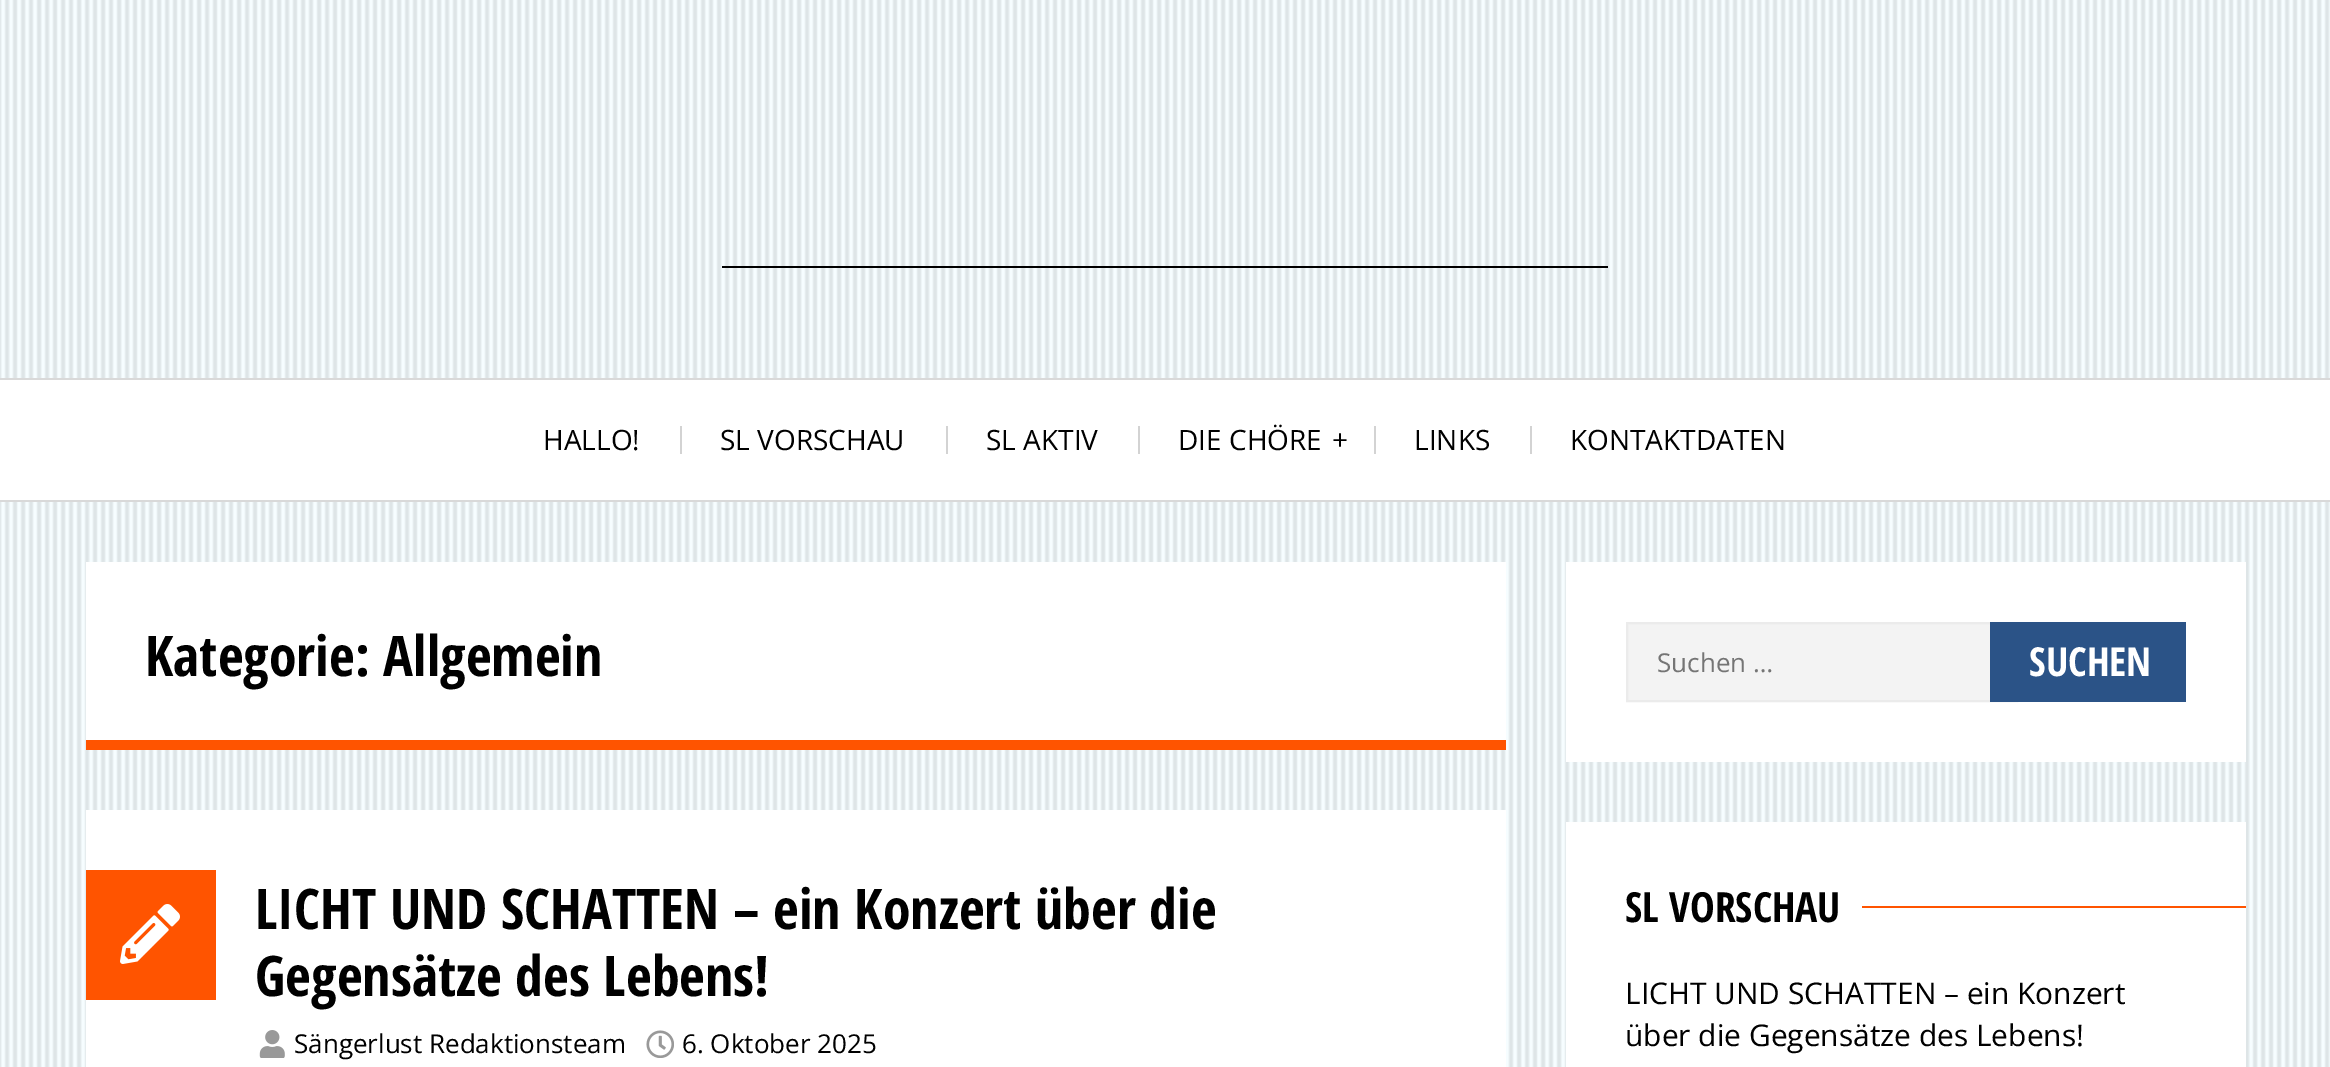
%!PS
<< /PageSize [2330 1067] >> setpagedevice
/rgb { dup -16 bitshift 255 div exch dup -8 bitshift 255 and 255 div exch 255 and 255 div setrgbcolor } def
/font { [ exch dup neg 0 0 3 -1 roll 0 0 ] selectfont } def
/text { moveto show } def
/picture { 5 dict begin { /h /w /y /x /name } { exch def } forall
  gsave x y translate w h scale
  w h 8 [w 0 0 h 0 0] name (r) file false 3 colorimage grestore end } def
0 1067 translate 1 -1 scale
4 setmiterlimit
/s1 { /OpenSans-Regular 28 font 16#000000 rgb } def
/s2 { /OpenSansCondensed-Bold 55.9 font 16#000000 rgb } def
/s3 { /OpenSans-Regular 26 font 16#000000 rgb } def
/s4 { /OpenSans-Regular 26 font 16#757575 rgb } def
/s5 { /OpenSansCondensed-Bold 40 font 16#FFFFFF rgb } def
/s6 { /OpenSansCondensed-Bold 41.5 font 16#000000 rgb } def
/s7 { /OpenSans-Regular 29.9 font 16#000000 rgb } def
16#FFFFFF rgb
0 0 2330 1067 rectfill
(pic1.raw) 0 0 2330 1067 picture
16#000000 rgb
722 266 886 2 rectfill
16#FFFFFF rgb
0 380 2330 120 rectfill
16#D9D9D9 rgb
0 378 2330 2 rectfill
0 500 2330 2 rectfill
s1
(HALLO!) 543 450 text
16#D3D3D3 rgb
680 426 2 28 rectfill
s1
(SL VORSCHAU) 720 450 text
16#D3D3D3 rgb
946 426 2 28 rectfill
s1
(SL AKTIV) 986 450 text
16#D3D3D3 rgb
1138 426 2 28 rectfill
s1
(DIE CHÖRE) 1178 450 text
(+) 1332 450 text
16#D3D3D3 rgb
1374 426 2 28 rectfill
s1
(LINKS) 1414 450 text
16#D3D3D3 rgb
1530 426 2 28 rectfill
s1
(KONTAKTDATEN) 1570 450 text
16#FFFFFF rgb
86 562 1420 178 rectfill
16#FF5400 rgb
86 740 1420 10 rectfill
s2
(Kategorie: Allgemein) 145 676 text
16#FFFFFF rgb
86 810 1420 257 rectfill
16#FF5400 rgb
86 870 130 130 rectfill
(pic2.raw) 120 904 60 60 picture
s2
(LICHT UND SCHATTEN – ein Konzert über die) 255 929 text
(Gegensätze des Lebens!) 255 996 text
(pic3.raw) 259 1030 26 28 picture
s3
(Sängerlust Redaktionsteam) 294 1053 text
(pic4.raw) 646 1030 28 28 picture
(6. Oktober 2025) 682 1053 text
16#FFFFFF rgb
1566 562 680 200 rectfill
16#F3F3F3 rgb
1628 624 362 76 rectfill
16#EBEBEB rgb
2 setlinewidth
1627 623 390 78 rectstroke
s4
(Suchen …) 1657 672 text
16#2B5387 rgb
1990 622 196 80 rectfill
s5
(SUCHEN) 2029 676 text
1566 822 680 245 rectfill
s6
(SL VORSCHAU) 1625 922 text
16#FF5400 rgb
1862 906 384 2 rectfill
s7
(LICHT UND SCHATTEN – ein Konzert) 1625 1004 text
(über die Gegensätze des Lebens!) 1625 1046 text
showpage
